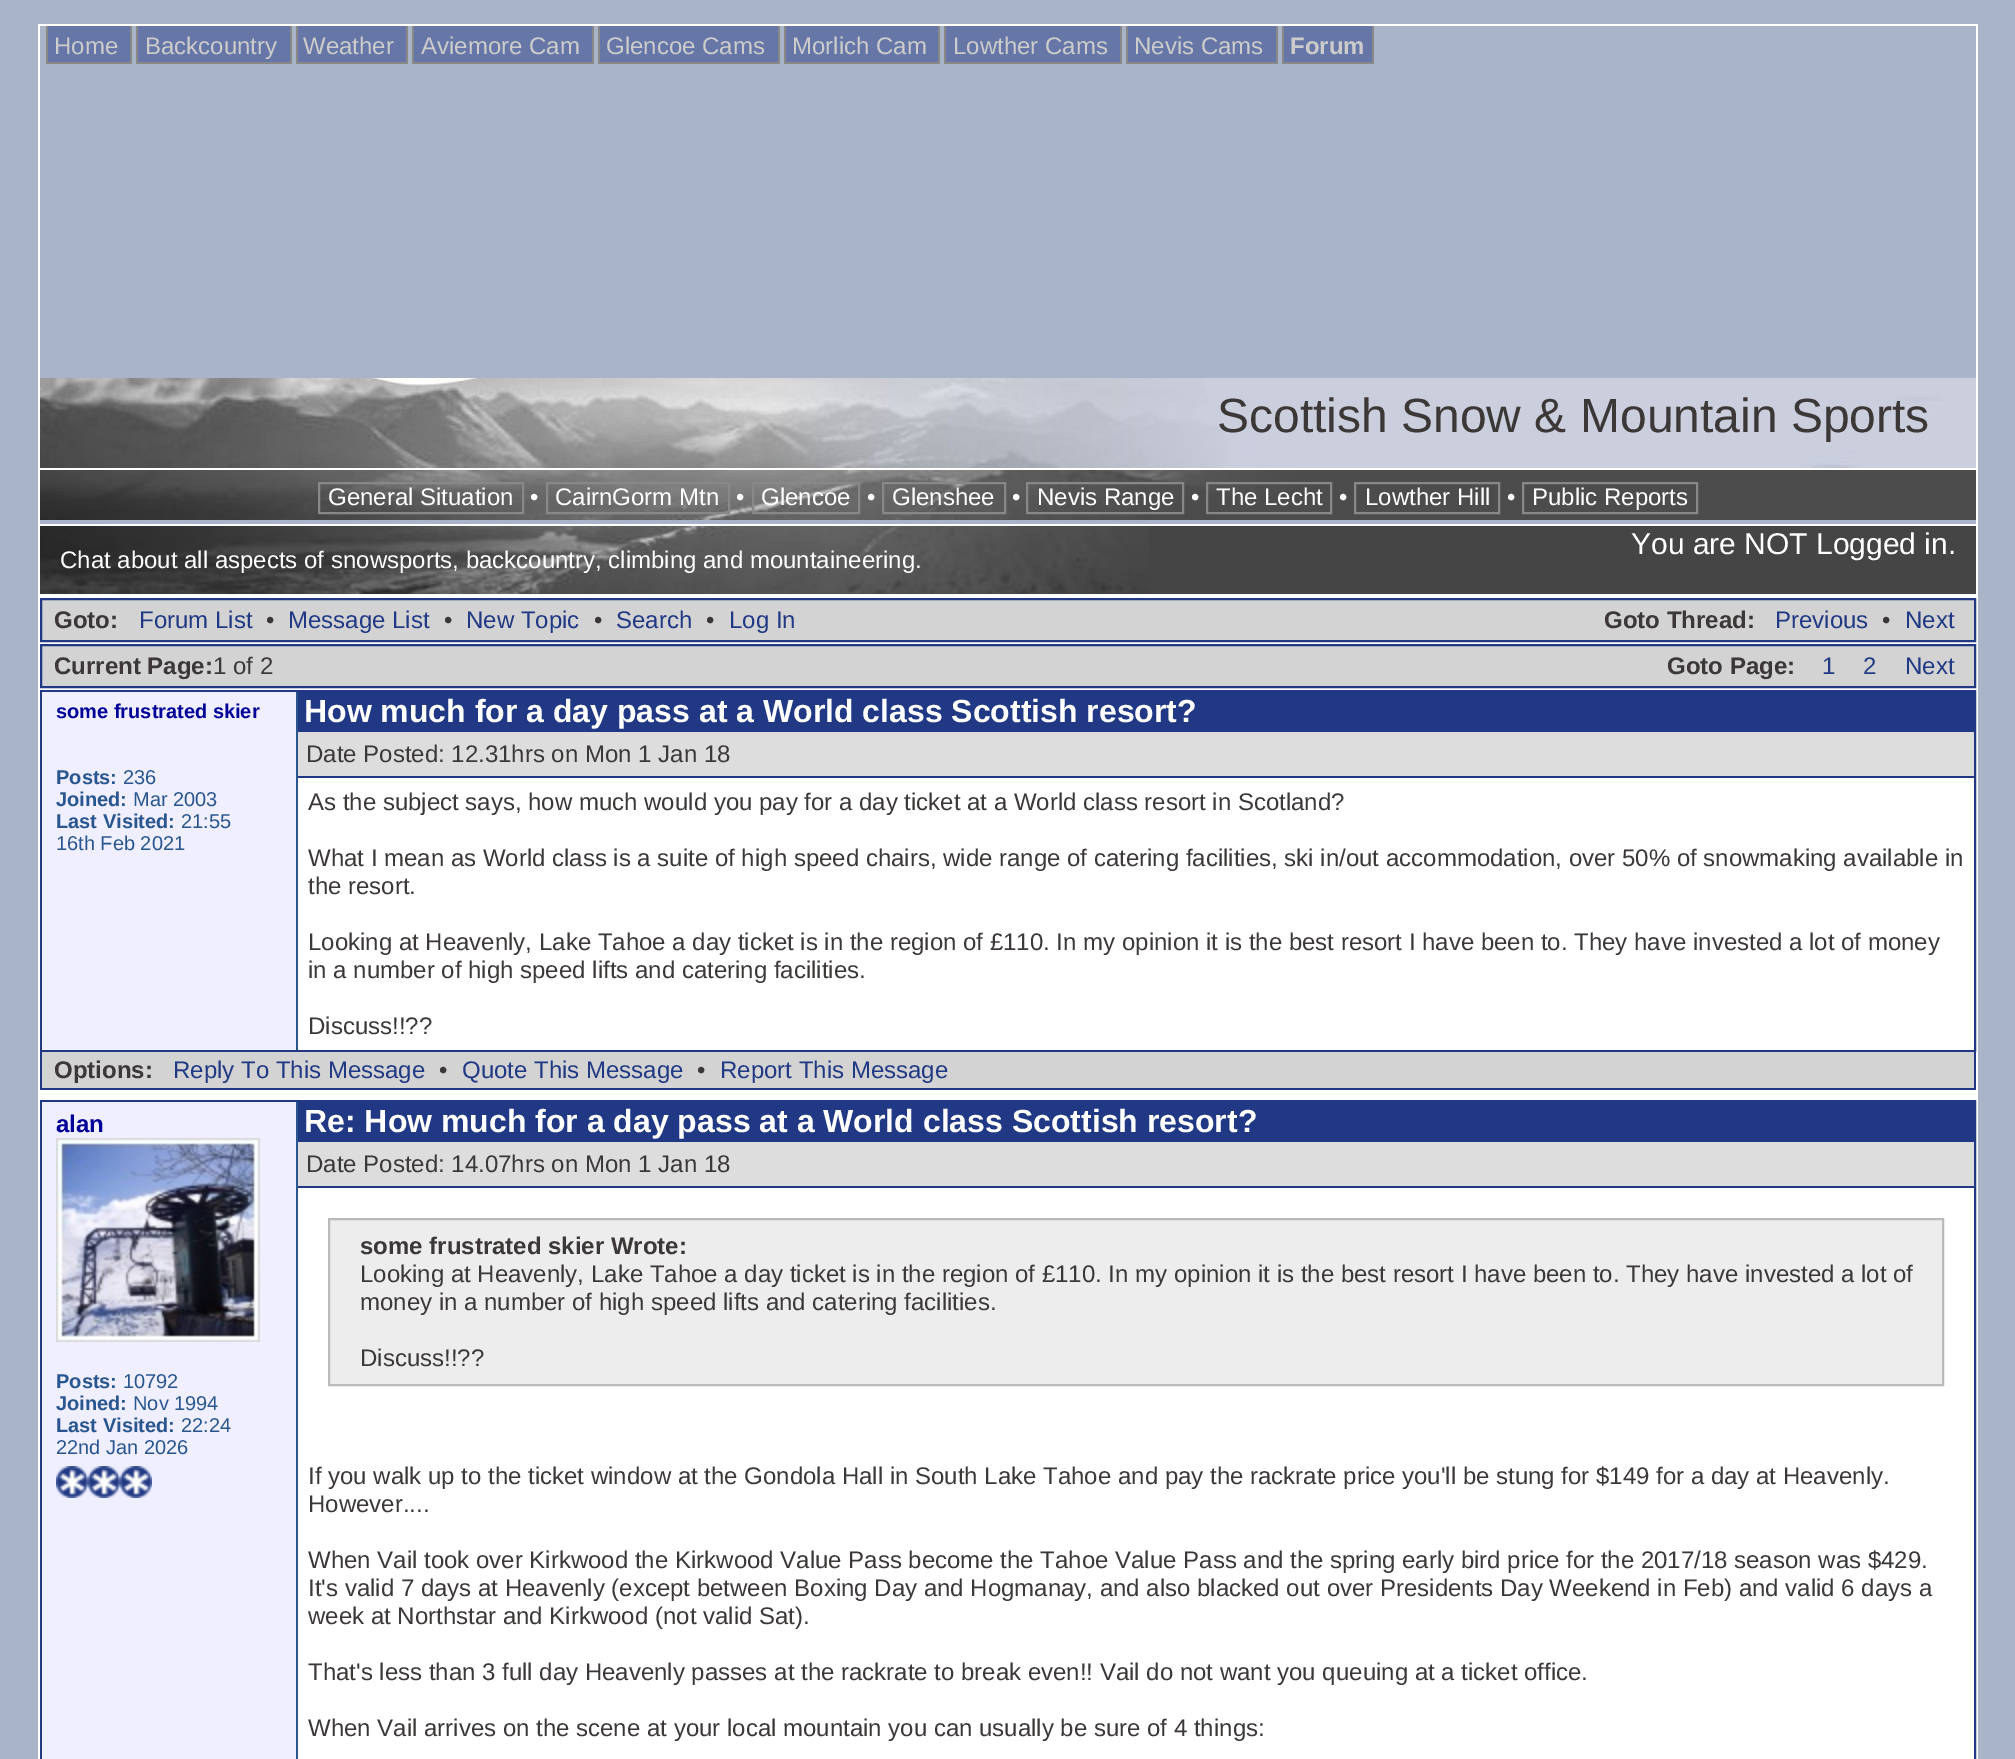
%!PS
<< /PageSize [2015 1759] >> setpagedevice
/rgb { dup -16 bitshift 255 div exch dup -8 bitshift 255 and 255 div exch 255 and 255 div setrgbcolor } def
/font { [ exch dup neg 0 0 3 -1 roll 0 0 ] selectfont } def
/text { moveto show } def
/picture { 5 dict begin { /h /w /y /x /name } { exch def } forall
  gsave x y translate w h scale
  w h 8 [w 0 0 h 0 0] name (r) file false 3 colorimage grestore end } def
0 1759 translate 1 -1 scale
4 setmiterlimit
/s1 { /LiberationSans-Regular 24 font 16#CCCCCC rgb } def
/s2 { /LiberationSans-Bold 24 font 16#CCCCCC rgb } def
/s3 { /LiberationSans-Regular 48 font 16#3B3837 rgb } def
/s4 { /LiberationSans-Regular 24 font 16#FFFFFF rgb } def
/s5 { /LiberationSans-Regular 30 font 16#FFFFFF rgb } def
/s6 { /LiberationSans-Bold 24 font 16#3B3837 rgb } def
/s7 { /LiberationSans-Regular 24 font 16#213984 rgb } def
/s8 { /LiberationSans-Regular 24 font 16#3B3837 rgb } def
/s9 { /LiberationSans-Bold 20 font 16#000099 rgb } def
/s10 { /LiberationSans-Bold 20 font 16#29568F rgb } def
/s11 { /LiberationSans-Regular 20 font 16#29568F rgb } def
/s12 { /LiberationSans-Bold 32 font 16#FFFFFF rgb } def
/s13 { /LiberationSans-Bold 24 font 16#000099 rgb } def
16#AAB4C8 rgb
0 0 2015 1759 rectfill
16#FFFFFF rgb
38 24 1940 2 rectfill
1976 24 2 502 rectfill
38 24 2 354 rectfill
16#6677A7 rgb
48 26 82 36 rectfill
s1
(Home) 54 54 text
16#888888 rgb
130 26 2 38 rectfill
46 62 86 2 rectfill
46 26 2 38 rectfill
16#6677A7 rgb
138 26 152 36 rectfill
s1
(Backcountry) 145 54 text
16#888888 rgb
290 26 2 38 rectfill
136 62 156 2 rectfill
136 26 2 38 rectfill
16#6677A7 rgb
298 26 108 36 rectfill
s1
(Weather) 303 54 text
16#888888 rgb
406 26 2 38 rectfill
296 62 112 2 rectfill
296 26 2 38 rectfill
16#6677A7 rgb
414 26 178 36 rectfill
s1
(Aviemore Cam) 421 54 text
16#888888 rgb
592 26 2 38 rectfill
412 62 182 2 rectfill
412 26 2 38 rectfill
16#6677A7 rgb
600 26 178 36 rectfill
s1
(Glencoe Cams) 606 54 text
16#888888 rgb
778 26 2 38 rectfill
598 62 182 2 rectfill
598 26 2 38 rectfill
16#6677A7 rgb
786 26 152 36 rectfill
s1
(Morlich Cam) 792 54 text
16#888888 rgb
938 26 2 38 rectfill
784 62 156 2 rectfill
784 26 2 38 rectfill
16#6677A7 rgb
946 26 174 36 rectfill
s1
(Lowther Cams) 953 54 text
16#888888 rgb
1120 26 2 38 rectfill
944 62 178 2 rectfill
944 26 2 38 rectfill
16#6677A7 rgb
1128 26 148 36 rectfill
s1
(Nevis Cams) 1134 54 text
16#888888 rgb
1276 26 2 38 rectfill
1126 62 152 2 rectfill
1126 26 2 38 rectfill
16#6677A7 rgb
1284 26 88 36 rectfill
s2
(Forum) 1290 54 text
16#888888 rgb
1372 26 2 38 rectfill
1282 62 92 2 rectfill
1282 26 2 38 rectfill
(pic1.raw) 40 378 1936 90 picture
16#FFFFFF rgb
38 468 1940 2 rectfill
38 378 2 92 rectfill
s3
(Scottish Snow & Mountain Sports) 1217 432 text
(pic2.raw) 40 470 1936 50 picture
16#FFFFFF rgb
38 524 1940 1235 rectfill
38 470 2 56 rectfill
16#888888 rgb
2 setlinewidth
319 483 204 30 rectstroke
s4
(General Situation) 328 505 text
(•) 530 505 text
16#888888 rgb
547 483 182 30 rectstroke
s4
(CairnGorm Mtn) 555 505 text
(•) 736 505 text
16#888888 rgb
753 483 106 30 rectstroke
s4
(Glencoe) 761 505 text
(•) 867 505 text
16#888888 rgb
883 483 122 30 rectstroke
s4
(Glenshee) 892 505 text
(•) 1012 505 text
16#888888 rgb
1027 483 156 30 rectstroke
s4
(Nevis Range) 1037 505 text
(•) 1191 505 text
16#888888 rgb
1207 483 124 30 rectstroke
s4
(The Lecht) 1216 505 text
(•) 1339 505 text
16#888888 rgb
1355 483 144 30 rectstroke
s4
(Lowther Hill) 1365 505 text
(•) 1507 505 text
16#888888 rgb
1523 483 174 30 rectstroke
s4
(Public Reports) 1532 505 text
16#454545 rgb
1149 526 827 68 rectfill
(pic3.raw) 40 526 1109 68 picture
s4
(Chat about all aspects of snowsports, backcountry, climbing and mountaineering.) 60 568 text
s5
(You are NOT Logged in.) 1631 554 text
16#D3D3D3 rgb
41 599 moveto 1975 599 lineto 1975 641 lineto 41 641 lineto closepath gsave fill grestore
16#213984 rgb
stroke
s6
(Goto:) 54 628 text
s7
(Forum List) 139 628 text
s8
(•) 266 628 text
s7
(Message List) 288 628 text
s8
(•) 444 628 text
s7
(New Topic) 466 628 text
s8
(•) 594 628 text
s7
(Search) 616 628 text
s8
(•) 706 628 text
s7
(Log In) 729 628 text
s6
(Goto Thread:) 1604 628 text
s7
(Previous) 1775 628 text
s8
(•) 1882 628 text
s7
(Next) 1905 628 text
16#D3D3D3 rgb
41 645 moveto 1975 645 lineto 1975 687 lineto 41 687 lineto closepath gsave fill grestore
16#213984 rgb
stroke
s6
(Current Page:) 54 674 text
s8
(1 of 2) 213 674 text
s6
(Goto Page:) 1667 674 text
s7
(1) 1822 674 text
(2) 1863 674 text
(Next) 1905 674 text
41 691 1934 360 rectstroke
16#EFEFFF rgb
42 692 254 358 rectfill
16#29568F rgb
296 692 2 358 rectfill
s9
(some frustrated skier) 56 718 text
s10
(Posts:) 56 784 text
s11
(236) 123 784 text
s10
(Joined:) 56 806 text
s11
(Mar 2003) 133 806 text
s10
(Last Visited:) 56 828 text
s11
(21:55) 181 828 text
(16th Feb 2021) 56 850 text
16#213984 rgb
298 692 1676 40 rectfill
s12
(How much for a day pass at a World class Scottish resort?) 304 722 text
16#DDDDDD rgb
298 732 1676 44 rectfill
16#213984 rgb
298 776 1676 2 rectfill
s8
(Date Posted: 12.31hrs on Mon 1 Jan 18) 306 762 text
(As the subject says, how much would you pay for a day ticket at a World class resort in Scotland?) 308 810 text
(What I mean as World class is a suite of high speed chairs, wide range of catering facilities, ski in/out accommodation, over 50% of snowmaking available in) 308 866 text
(the resort.) 308 894 text
(Looking at Heavenly, Lake Tahoe a day ticket is in the region of £110. In my opinion it is the best resort I have been to. They have invested a lot of money) 308 950 text
(in a number of high speed lifts and catering facilities.) 308 978 text
(Discuss!!??) 308 1034 text
16#D3D3D3 rgb
42 1052 1932 36 rectfill
16#213984 rgb
1974 1052 2 38 rectfill
40 1088 1936 2 rectfill
40 1052 2 38 rectfill
s6
(Options:) 54 1078 text
s7
(Reply To This Message) 173 1078 text
s8
(•) 439 1078 text
s7
(Quote This Message) 462 1078 text
s8
(•) 697 1078 text
s7
(Report This Message) 720 1078 text
41 1101 1934 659 rectstroke
16#EFEFFF rgb
42 1102 254 657 rectfill
16#29568F rgb
296 1102 2 657 rectfill
s13
(alan) 56 1132 text
(pic4.raw) 56 1138 204 204 picture
s10
(Posts:) 56 1388 text
s11
(10792) 123 1388 text
s10
(Joined:) 56 1410 text
s11
(Nov 1994) 133 1410 text
s10
(Last Visited:) 56 1432 text
s11
(22:24) 181 1432 text
(22nd Jan 2026) 56 1454 text
(pic5.raw) 56 1466 32 32 picture
(pic5.raw) 88 1466 32 32 picture
(pic5.raw) 120 1466 32 32 picture
16#213984 rgb
298 1102 1676 40 rectfill
s12
(Re: How much for a day pass at a World class Scottish resort?) 304 1132 text
16#DDDDDD rgb
298 1142 1676 44 rectfill
16#213984 rgb
298 1186 1676 2 rectfill
s8
(Date Posted: 14.07hrs on Mon 1 Jan 18) 306 1172 text
16#EDEDED rgb
329 1219 moveto 1943 1219 lineto 1943 1385 lineto 329 1385 lineto closepath gsave fill grestore
16#BABABA rgb
stroke
s6
(some frustrated skier Wrote:) 360 1254 text
s8
(Looking at Heavenly, Lake Tahoe a day ticket is in the region of £110. In my opinion it is the best resort I have been to. They have invested a lot of) 360 1282 text
(money in a number of high speed lifts and catering facilities.) 360 1310 text
(Discuss!!??) 360 1366 text
(If you walk up to the ticket window at the Gondola Hall in South Lake Tahoe and pay the rackrate price you'll be stung for $149 for a day at Heavenly.) 308 1484 text
(However....) 308 1512 text
(When Vail took over Kirkwood the Kirkwood Value Pass become the Tahoe Value Pass and the spring early bird price for the 2017/18 season was $429.) 308 1568 text
(It's valid 7 days at Heavenly \(except between Boxing Day and Hogmanay, and also blacked out over Presidents Day Weekend in Feb\) and valid 6 days a) 308 1596 text
(week at Northstar and Kirkwood \(not valid Sat\).) 308 1624 text
(That's less than 3 full day Heavenly passes at the rackrate to break even!! Vail do not want you queuing at a ticket office.) 308 1680 text
(When Vail arrives on the scene at your local mountain you can usually be sure of 4 things:) 308 1736 text
showpage
